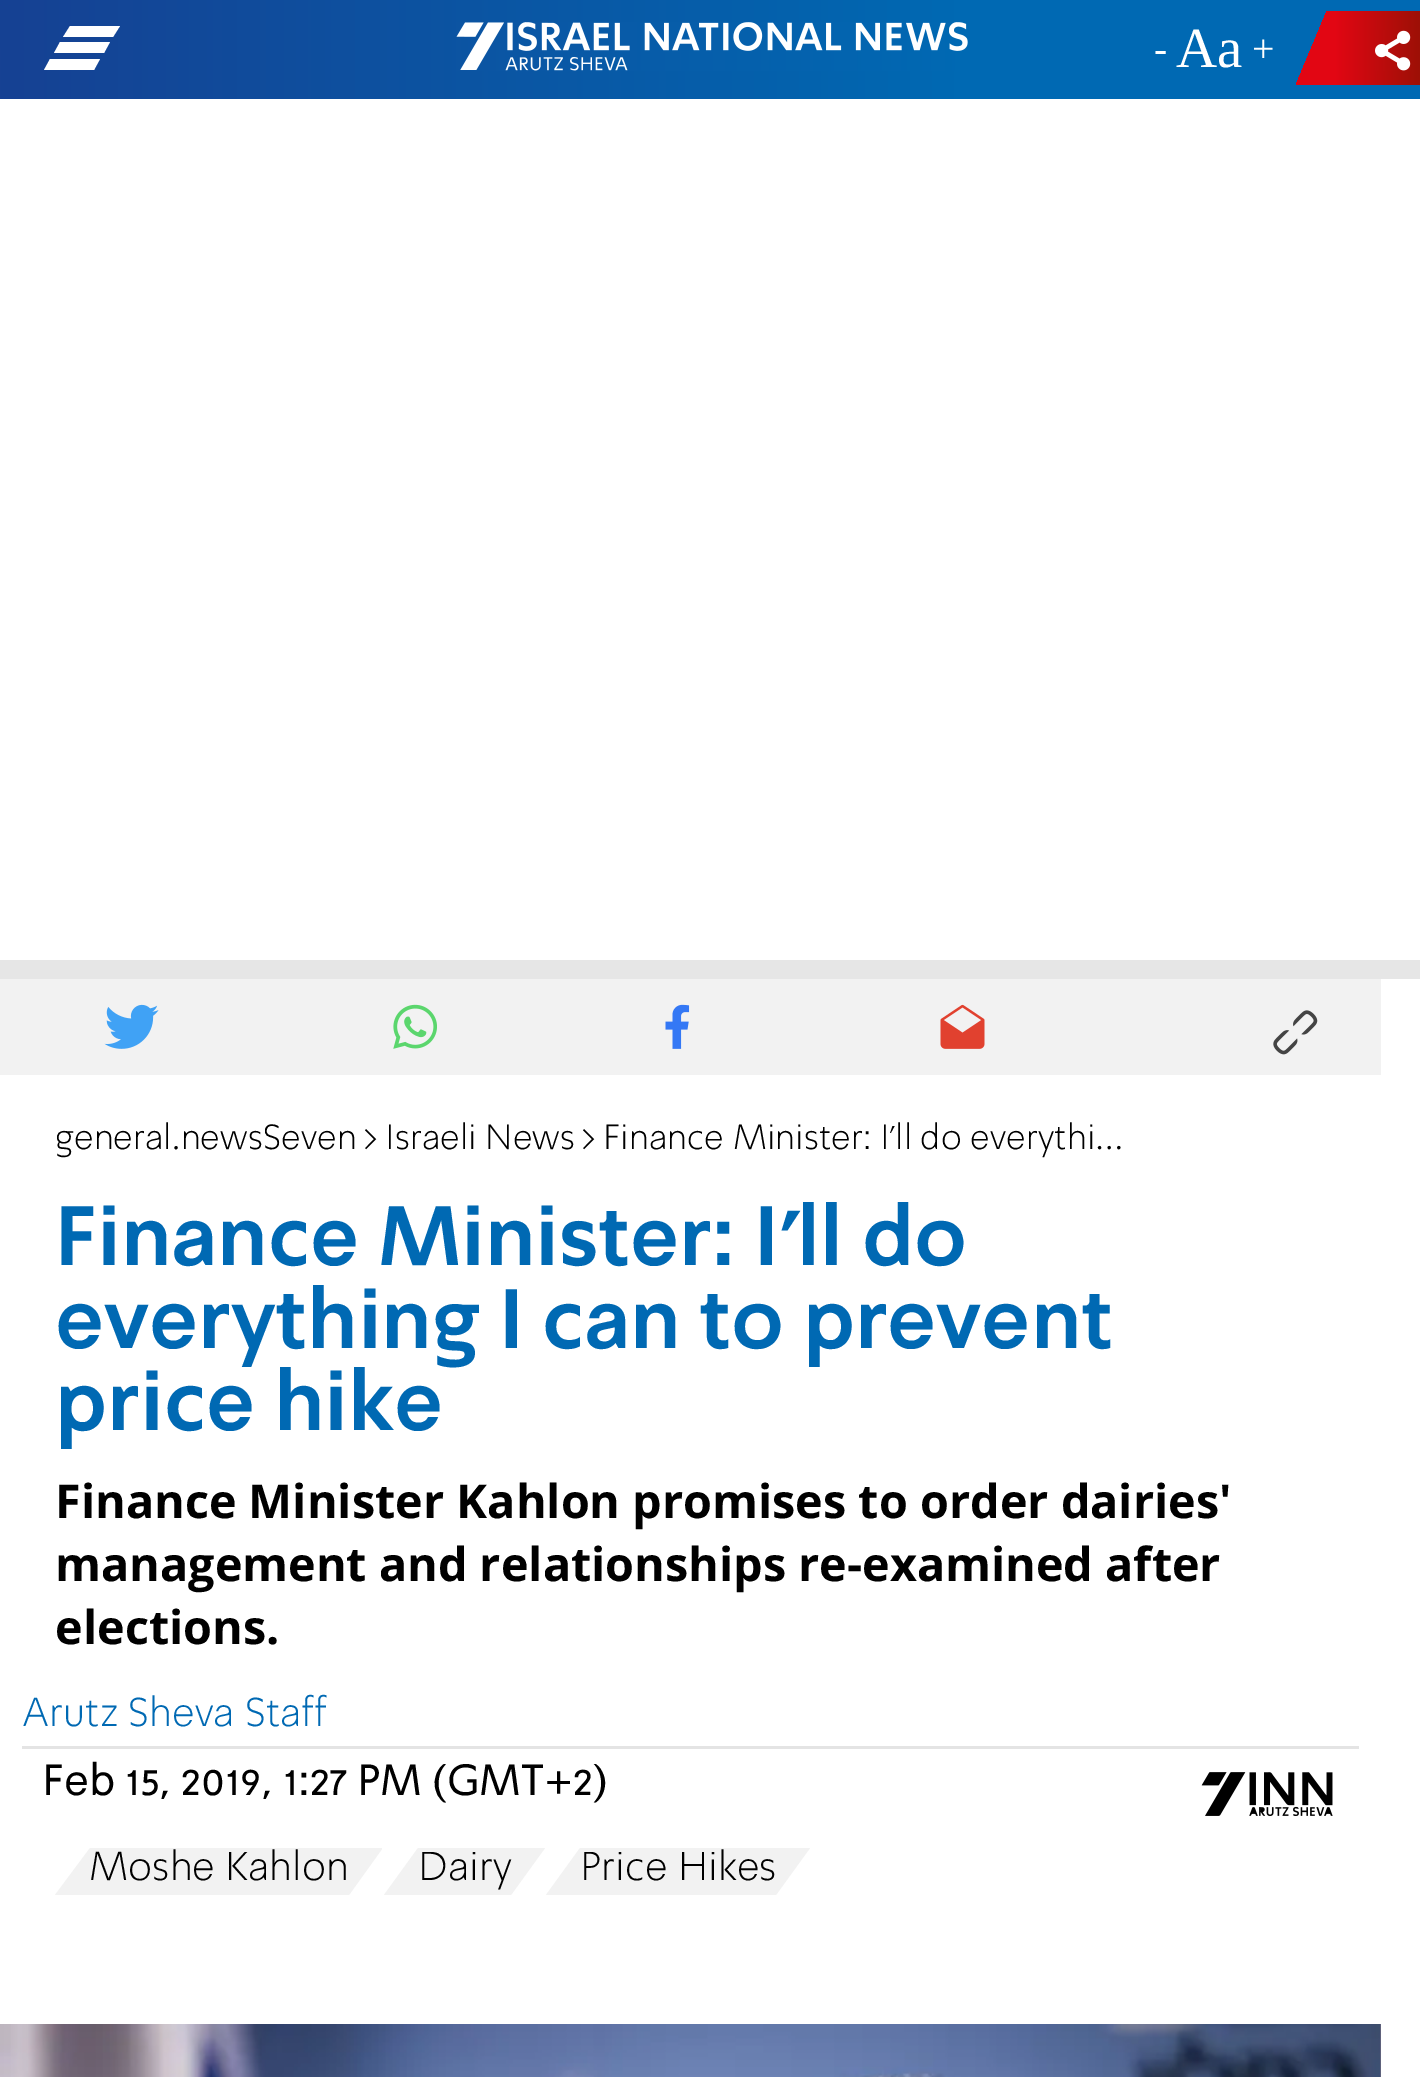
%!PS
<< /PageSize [1420 2077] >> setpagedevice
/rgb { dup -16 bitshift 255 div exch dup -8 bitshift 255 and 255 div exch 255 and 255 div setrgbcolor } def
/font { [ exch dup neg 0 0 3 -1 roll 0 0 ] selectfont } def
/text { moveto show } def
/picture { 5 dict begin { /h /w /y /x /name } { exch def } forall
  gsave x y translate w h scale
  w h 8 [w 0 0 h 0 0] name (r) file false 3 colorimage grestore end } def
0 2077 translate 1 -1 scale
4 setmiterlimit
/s1 { /LiberationSerif-Regular 40 font 16#FFFFFF rgb } def
/s2 { /LiberationSerif-Regular 57 font 16#FFFFFF rgb } def
/s3 { /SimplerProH-Light 35.75 font 16#000000 rgb } def
/s4 { /SimplerProH-Bold 82.5 font 16#0069B3 rgb } def
/s5 { /OpenSans-Bold 46.75 font 16#000000 rgb } def
/s6 { /SimplerProH-Light 41.25 font 16#0069B3 rgb } def
/s7 { /SimplerProH-Regular 44 font 16#000000 rgb } def
/s8 { /SimplerProH-Light 41.25 font 16#000000 rgb } def
16#FFFFFF rgb
0 0 1420 2077 rectfill
gsave 0 0 moveto 1420 0 lineto 1420 99 lineto 0 99 lineto closepath clip newpath
<< /ShadingType 2 /ColorSpace /DeviceRGB /Coords [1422 49 0 50] /Extend [true true] /Function << /FunctionType 3 /Domain [0 1] /Functions [<< /FunctionType 2 /Domain [0 1] /C0 [0 0.412 0.702] /C1 [0 0.412 0.702] /N 1 >> << /FunctionType 2 /Domain [0 1] /C0 [0 0.412 0.702] /C1 [0.086 0.255 0.576] /N 1 >>] /Bounds [0.32] /Encode [0 1 0 1] >> >> shfill grestore
60 42 moveto 54 53 lineto 104 53 lineto 110 42 lineto closepath 70 26 moveto 63 37 lineto 113 37 lineto 120 26 lineto closepath 94 70 moveto 100 59 lineto 50 59 lineto 44 70 lineto closepath fill
(pic1.raw) 456 22 512 49 picture
s1
(-) 1154 62 text
s2
(Aa) 1176 67 text
s1
(+) 1252 62 text
gsave 1327 11 moveto 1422 11 lineto 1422 85 lineto 1296 85 lineto closepath clip newpath
<< /ShadingType 2 /ColorSpace /DeviceRGB /Coords [1295 48 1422 48] /Extend [true true] /Function << /FunctionType 3 /Domain [0 1] /Functions [<< /FunctionType 2 /Domain [0 1] /C0 [0.886 0.024 0.075] /C1 [0.886 0.024 0.075] /N 1 >> << /FunctionType 2 /Domain [0 1] /C0 [0.886 0.024 0.075] /C1 [0.608 0.063 0.024] /N 1 >>] /Bounds [0.32] /Encode [0 1 0 1] >> >> shfill grestore
(pic2.raw) 1375 30 36 41 picture
16#E6E6E6 rgb
0 960 1420 19 rectfill
16#F2F2F2 rgb
0 979 1381 96 rectfill
(pic3.raw) 104 1004 55 45 picture
(pic4.raw) 393 1004 44 45 picture
(pic5.raw) 665 1004 25 45 picture
(pic6.raw) 940 1004 45 45 picture
(pic7.raw) 1273 1010 45 45 picture
s3
(general.newsSeven) 55 1149 text
(>) 362 1149 text
(Israeli News) 385 1149 text
(>) 580 1149 text
(Finance Minister: I'll do everythi…) 603 1149 text
s4
(Finance Minister: I'll do) 55 1265 text
(everything I can to prevent) 55 1348 text
(price hike) 55 1430 text
s5
(Finance Minister Kahlon promises to order dairies') 55 1518 text
(management and relationships re-examined after) 55 1581 text
(elections.) 55 1644 text
s6
(Arutz Sheva Staff) 22 1726 text
16#E4E4E4 rgb
22 1746 1337 3 rectfill
s7
(Feb 15, 2019, 1:27 PM \(GMT+2\)) 42 1795 text
(pic8.raw) 1201 1772 132 45 picture
16#F2F2F2 rgb
55 1895 moveto 90 1848 lineto 382 1848 lineto 382 1849 lineto 349 1895 lineto closepath fill
s8
(Moshe Kahlon) 89 1880 text
16#F2F2F2 rgb
384 1895 moveto 418 1848 lineto 545 1848 lineto 511 1895 lineto closepath fill
s8
(Dairy) 418 1880 text
16#F2F2F2 rgb
546 1895 moveto 580 1848 lineto 810 1848 lineto 776 1895 lineto closepath fill
s8
(Price Hikes) 580 1880 text
16#6A6880 rgb
1380 2024 1 53 rectfill
(pic9.raw) 0 2024 1381 53 picture
showpage
